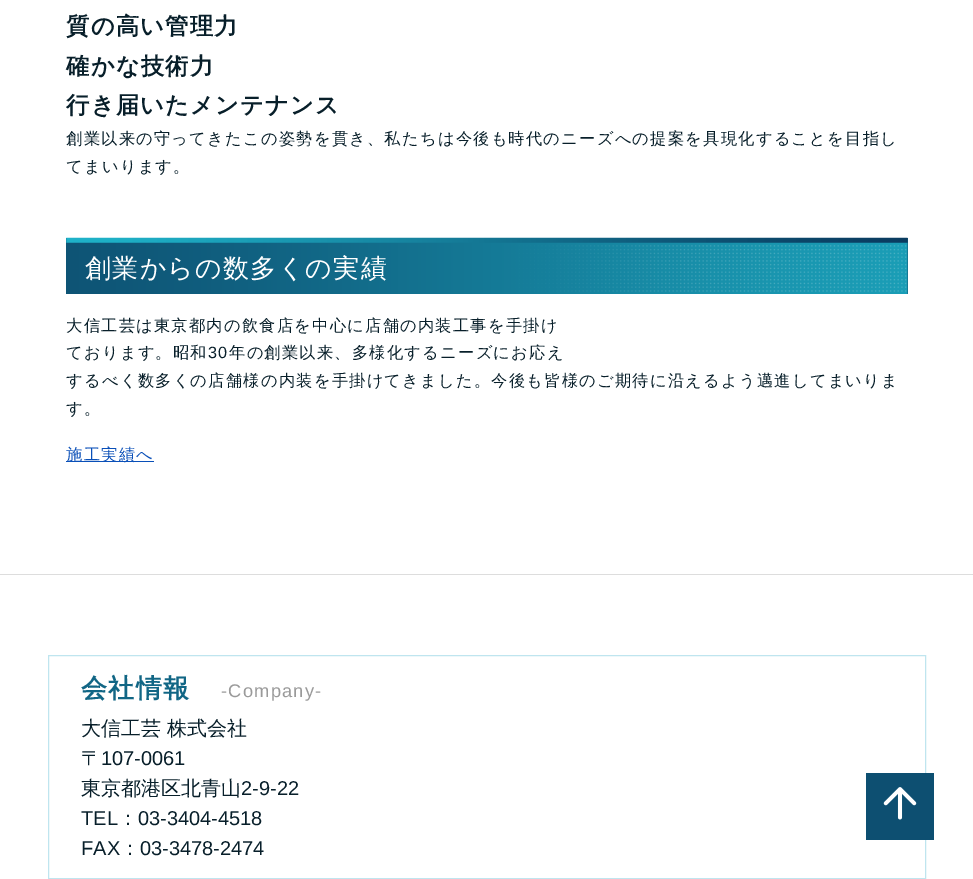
%!PS
<< /PageSize [973 879] >> setpagedevice
/rgb { dup -16 bitshift 255 div exch dup -8 bitshift 255 and 255 div exch 255 and 255 div setrgbcolor } def
/font { [ exch dup neg 0 0 3 -1 roll 0 0 ] selectfont } def
/text { moveto show } def
/picture { 5 dict begin { /h /w /y /x /name } { exch def } forall
  gsave x y translate w h scale
  w h 8 [w 0 0 h 0 0] name (r) file false 3 colorimage grestore end } def
0 879 translate 1 -1 scale
4 setmiterlimit
/s1 { /WenQuanYiZenHei-Medium 20 font 16#081F2A rgb } def
/s2 { /LiberationSans-Regular 20 font 16#081F2A rgb } def
16#FFFFFF rgb
0 0 973 879 rectfill
16#DDDDDD rgb
0 574 973 1 rectfill
/WenQuanYiZenHei-Bold 23.25 font
16#081F2A rgb
66 34 moveto 1.25 0 (質の高い管理力) ashow
66 74 moveto 1.25 0 (確かな技術力) ashow
66 113 moveto 1.25 0 (行き届いたメンテナンス) ashow
/WenQuanYiZenHei-Medium 16.25 font
66 144 moveto 1.25 0 (創業以来の守ってきたこの姿勢を貫き、私たちは今後も時代のニーズへの提案を具現化することを目指し) ashow
66 172 moveto 1.25 0 (てまいります。) ashow
16#0E5374 rgb
66 238 842 56 rectfill
(pic1.raw) 66 237 842 57 picture
/WenQuanYiZenHei-Medium 26 font
16#FFFFFF rgb
85 277 moveto 1.25 0 (創業からの数多くの実績) ashow
/WenQuanYiZenHei-Medium 16.25 font
16#081F2A rgb
66 331 moveto 1.25 0 (大信工芸は東京都内の飲食店を中心に店舗の内装工事を手掛け) ashow
66 358 moveto 1.25 0 (ております。昭和) ashow
/LiberationSans-Regular 16.25 font
208 358 moveto 1.25 0 (30) ashow
/WenQuanYiZenHei-Medium 16.25 font
229 358 moveto 1.25 0 (年の創業以来、多様化するニーズにお応え) ashow
66 386 moveto 1.25 0 (するべく数多くの店舗様の内装を手掛けてきました。今後も皆様のご期待に沿えるよう邁進してまいりま) ashow
66 414 moveto 1.25 0 (す。) ashow
16#094FB8 rgb
66 461 88 1 rectfill
66 460 moveto 1.25 0 (施工実績へ) ashow
16#BFE5EF rgb
48.5 655.5 877 223 rectstroke
/WenQuanYiZenHei-Bold 26 font
16#116685 rgb
81 697 moveto 1.25 0 (会社情報) ashow
/LiberationSans-Regular 18.25 font
16#9A9A9A rgb
221 697 moveto 1.25 0 (-Company-) ashow
s1
(大信工芸 株式会社) 81 735 text
(〒) 81 765 text
s2
(107-0061) 101 765 text
s1
(東京都港区北青山) 81 795 text
s2
(2-9-22) 241 795 text
(TEL) 81 825 text
s1
(：) 118 825 text
s2
(03-3404-4518) 138 825 text
(FAX) 81 855 text
s1
(：) 120 855 text
s2
(03-3478-2474) 140 855 text
16#0D4F71 rgb
866 773 68 67 rectfill
(pic2.raw) 883 787 34 33 picture
showpage
